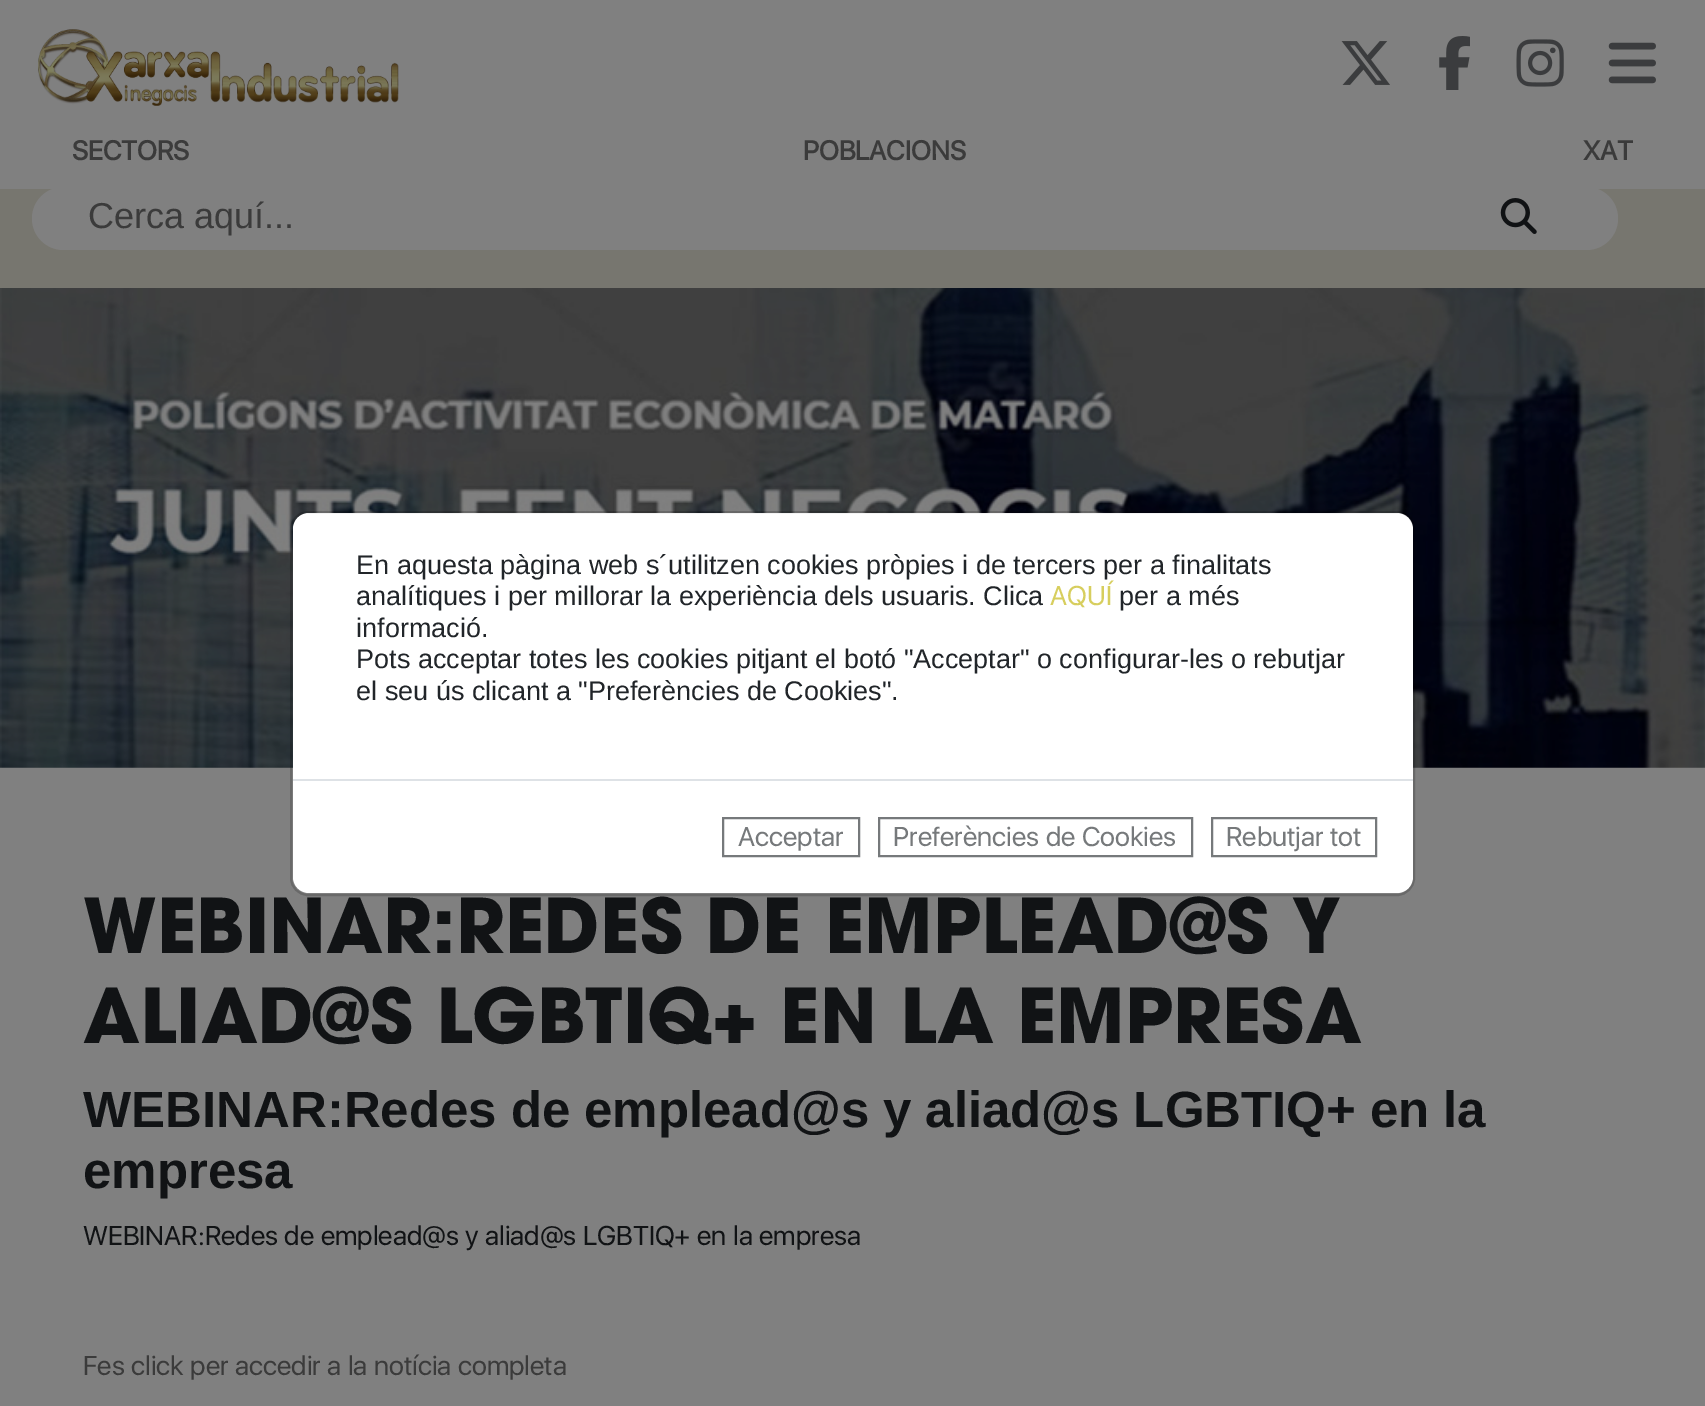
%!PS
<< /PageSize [1705 1406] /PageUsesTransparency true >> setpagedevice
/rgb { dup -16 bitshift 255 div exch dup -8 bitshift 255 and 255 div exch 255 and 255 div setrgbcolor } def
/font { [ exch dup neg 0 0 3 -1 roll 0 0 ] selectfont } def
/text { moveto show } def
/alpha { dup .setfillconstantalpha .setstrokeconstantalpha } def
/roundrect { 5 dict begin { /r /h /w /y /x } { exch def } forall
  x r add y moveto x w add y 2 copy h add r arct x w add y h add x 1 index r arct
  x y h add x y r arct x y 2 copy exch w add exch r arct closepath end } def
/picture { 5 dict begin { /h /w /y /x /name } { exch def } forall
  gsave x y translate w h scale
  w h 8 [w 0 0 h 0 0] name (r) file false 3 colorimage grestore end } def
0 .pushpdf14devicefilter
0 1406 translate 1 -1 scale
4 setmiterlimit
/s1 { /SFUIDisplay-Bold 27 font 16#3B3B3B rgb } def
/s2 { /LiberationSans-Regular 36 font 16#3B3B3B rgb } def
/s3 { /LiberationSans-Regular 27 font 16#212529 rgb } def
/s4 { /SFUIDisplay-Regular 27 font 16#D7CE5E rgb } def
/s5 { /SFUIDisplay-Regular 27 font 16#76797B rgb } def
/s6 { /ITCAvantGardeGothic-Bold 75.1 font 16#111315 rgb } def
/s7 { /LiberationSans-Bold 51 font 16#111315 rgb } def
/s8 { /SFUIDisplay-Regular 27 font 16#111315 rgb } def
/s9 { /SFUIDisplay-Regular 27 font 16#3B3B3B rgb } def
16#808080 rgb
0 0 1705 1406 rectfill
(pic1.raw) 38 29 361 77 picture
(pic2.raw) 1341 41 49 44 picture
(pic3.raw) 1439 36 31 54 picture
(pic4.raw) 1516 39 48 48 picture
(pic5.raw) 1608 42 48 42 picture
s1
(SECTORS) 72 160 text
(POBLACIONS) 803 160 text
(XAT) 1583 160 text
16#77766F rgb
0 189 1705 99 rectfill
16#808080 rgb
32 187 1586 63 31.5 roundrect fill
s2
(Cerca aquí...) 88 228 text
(pic6.raw) 1500 198 37 36 picture
(pic7.raw) 0 288 1705 480 picture
16#FFFFFF rgb
293 513 1120 380 16 roundrect fill
0.18 alpha
16#000000 rgb
2 setlinewidth
291 512 1123 383 17 roundrect stroke
1 alpha
s3
(En aquesta pàgina web s´utilitzen cookies pròpies i de tercers per a finalitats) 356 574 text
(analítiques i per millorar la experiència dels usuaris. Clica) 356 605 text
s4
(AQUÍ) 1050 605 text
s3
(per a més) 1119 605 text
(informació.) 356 637 text
(Pots acceptar totes les cookies pitjant el botó "Acceptar" o configurar-les o rebutjar) 356 668 text
(el seu ús clicant a "Preferències de Cookies".) 356 700 text
16#DEE2E6 rgb
293 779 1120 2 rectfill
16#76797B rgb
723 818 136 38 rectstroke
s5
(Acceptar) 738 846 text
879 818 313 38 rectstroke
(Preferències de Cookies) 893 846 text
1212 818 164 38 rectstroke
(Rebutjar tot) 1226 846 text
s6
(WEBINAR:REDES DE EMPLEAD@S Y) 83 953 text
(ALIAD@S LGBTIQ+ EN LA EMPRESA) 83 1043 text
/LiberationSans-Bold 51 font
83 1127 moveto -0.25 0 32 (WEBINAR:Redes de emplead@s y aliad@s LGBTIQ+ en la) widthshow
(empresa) 83 1188 text
s8
(WEBINAR:Redes de emplead@s y aliad@s LGBTIQ+ en la empresa) 83 1245 text
s9
(Fes click per accedir a la notícia completa) 83 1375 text
.poppdf14devicefilter showpage
